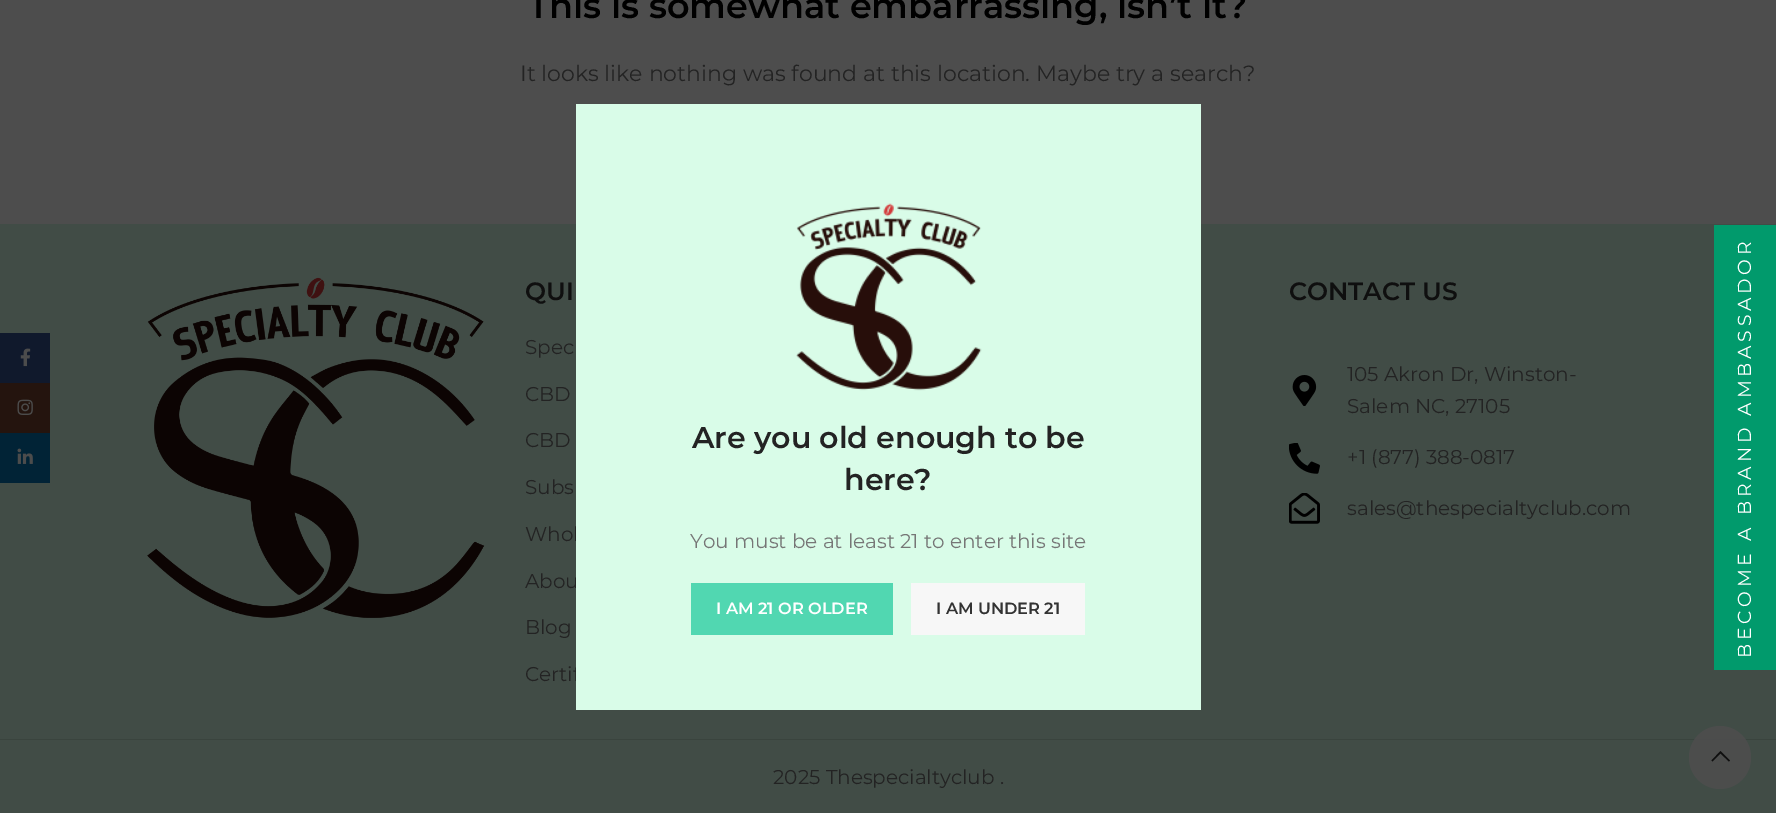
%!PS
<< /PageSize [1776 813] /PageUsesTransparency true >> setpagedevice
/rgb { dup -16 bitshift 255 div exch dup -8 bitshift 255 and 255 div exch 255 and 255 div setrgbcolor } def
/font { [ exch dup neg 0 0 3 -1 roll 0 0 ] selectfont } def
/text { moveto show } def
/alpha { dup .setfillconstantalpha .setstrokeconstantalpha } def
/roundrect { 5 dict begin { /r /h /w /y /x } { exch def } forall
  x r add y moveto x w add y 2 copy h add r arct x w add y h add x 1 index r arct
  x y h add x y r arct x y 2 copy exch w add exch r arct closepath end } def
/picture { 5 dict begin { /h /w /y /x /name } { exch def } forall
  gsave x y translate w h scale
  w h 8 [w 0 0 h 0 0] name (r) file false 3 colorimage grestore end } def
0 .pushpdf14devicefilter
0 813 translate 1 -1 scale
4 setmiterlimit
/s1 { /Montserrat-SemiBold 35 font 16#000000 rgb } def
/s2 { /Montserrat-Regular 22 font 16#232323 rgb } def
/s3 { /Montserrat-SemiBold 25 font 16#0F0F0F rgb } def
/s4 { /Montserrat-Regular 20 font 16#232323 rgb } def
/s5 { /Montserrat-SemiBold 30 font 16#232323 rgb } def
/s6 { /Montserrat-Regular 20 font 16#767676 rgb } def
/s7 { /Montserrat-SemiBold 16.25 font 16#FFFFFF rgb } def
/s8 { /Montserrat-SemiBold 16.25 font 16#333333 rgb } def
16#4D4D4D rgb
0 0 1776 813 rectfill
16#414C46 rgb
0 224 1776 589 rectfill
16#10192C rgb
0 333 50 50 rectfill
(pic1.raw) 20 348 11 19 picture
16#24140E rgb
0 383 50 50 rectfill
(pic2.raw) 17 399 16 16 picture
16#012336 rgb
0 433 50 50 rectfill
(pic3.raw) 17 448 16 16 picture
s1
(This is somewhat embarrassing, isn’t it?) 528 18 text
s2
(It looks like nothing was found at this location. Maybe try a search?) 520 81 text
(pic4.raw) 147 277 338 341 picture
s3
(QUI) 525 300 text
s4
(Spec) 525 354 text
(CBD) 525 401 text
(CBD) 525 447 text
(Subs) 525 494 text
(Whol) 525 541 text
(Abou) 525 588 text
(Blog) 525 634 text
(Certif) 525 681 text
s3
(CONTACT US) 1289 300 text
(pic5.raw) 1292 375 25 31 picture
s4
(105 Akron Dr, Winston-) 1347 381 text
(Salem NC, 27105) 1347 413 text
(pic6.raw) 1289 443 31 31 picture
(+1 \(877\) 388-0817) 1347 464 text
(pic7.raw) 1289 493 31 31 picture
(sales@thespecialtyclub.com) 1347 515 text
16#3A443E rgb
0 739 1776 1 rectfill
s4
(2025 Thespecialtyclub .) 773 784 text
16#019A6C rgb
1714 225 62 445 rectfill
/Montserrat-Regular 18.75 font
16#FFFFFF rgb
gsave 1751 658 translate -90 rotate 0 0 moveto 3.75 0 (BECOME A BRAND AMBASSADOR) ashow grestore
16#D9FCE8 rgb
576 104 625 606 rectfill
(pic8.raw) 796 203 186 188 picture
s5
(Are you old enough to be) 692 448 text
(here?) 844 490 text
s6
(You must be at least 21 to enter this site) 690 548 text
16#51D7B1 rgb
691 583 202 52 rectfill
s7
(I AM 21 OR OLDER) 716 614 text
16#F7F7F7 rgb
911 583 174 52 rectfill
s8
(I AM UNDER 21) 936 614 text
0.9 alpha
16#4D4D4D rgb
1689 726 62 63 31 roundrect fill
1 alpha
16#0F0F0F rgb
1729 761.5 moveto 1730 760.5 lineto 1720.5 751 lineto 1711.5 760.5 lineto 1712.5 761.5 lineto 1720.5 753.5 lineto closepath fill
.poppdf14devicefilter showpage
